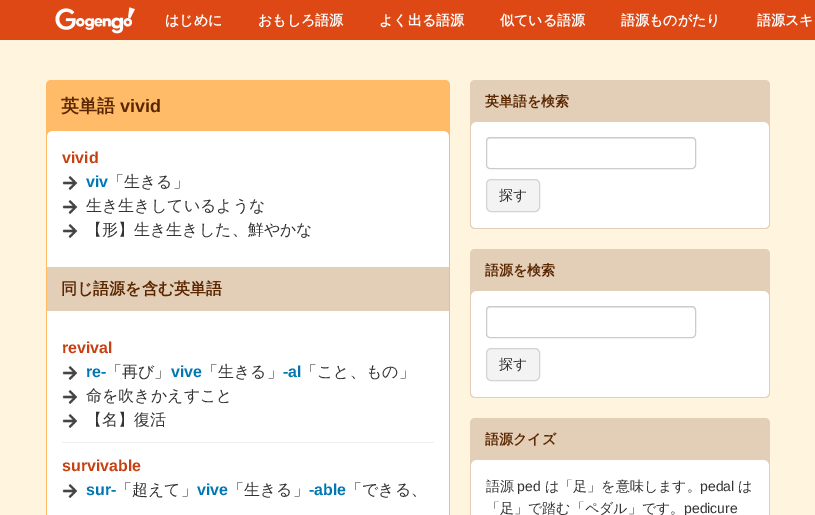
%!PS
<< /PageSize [815 515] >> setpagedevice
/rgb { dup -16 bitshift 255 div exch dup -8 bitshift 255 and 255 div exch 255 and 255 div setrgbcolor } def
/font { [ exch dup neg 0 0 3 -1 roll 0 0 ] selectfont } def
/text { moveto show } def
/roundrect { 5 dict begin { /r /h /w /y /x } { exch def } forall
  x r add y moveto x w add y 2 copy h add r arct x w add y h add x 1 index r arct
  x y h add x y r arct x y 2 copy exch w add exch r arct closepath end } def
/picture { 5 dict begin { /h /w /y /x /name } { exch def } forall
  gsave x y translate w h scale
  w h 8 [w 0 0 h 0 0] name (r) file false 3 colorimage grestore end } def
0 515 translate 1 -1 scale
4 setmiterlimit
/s1 { /WenQuanYiZenHei-Bold 14 font 16#FFFFFF rgb } def
/s2 { /WenQuanYiZenHei-Bold 18 font 16#5A2700 rgb } def
/s3 { /LiberationSans-Bold 18 font 16#5A2700 rgb } def
/s4 { /LiberationSans-Bold 16 font 16#C74012 rgb } def
/s5 { /LiberationSans-Bold 16 font 16#0077B2 rgb } def
/s6 { /WenQuanYiZenHei-Medium 16 font 16#333333 rgb } def
/s7 { /WenQuanYiZenHei-Bold 16 font 16#5A2700 rgb } def
/s8 { /WenQuanYiZenHei-Bold 14 font 16#5A2700 rgb } def
/s9 { /WenQuanYiZenHei-Medium 14 font 16#333333 rgb } def
/s10 { /LiberationSans-Regular 14 font 16#333333 rgb } def
16#FFF4DD rgb
0 0 815 515 rectfill
16#DD4814 rgb
0 0 815 40 rectfill
(pic1.raw) 55 7 80 27 picture
s1
(はじめに) 165 25 text
(おもしろ語源) 258 25 text
(よく出る語源) 379 25 text
(似ている語源) 500 25 text
(語源ものがたり) 621 25 text
(語源スキ) 757 25 text
16#FFBB68 rgb
46 80 404 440 5 roundrect fill
s2
(英単語) 61 112 text
s3
(vivid) 120 112 text
16#FFFFFF rgb
53 131 moveto 443 131 lineto 446.5 131 449 133.5 449 137 curveto 449 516 lineto 449 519 447 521 444 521 curveto 52 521 lineto 49 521 47 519 47 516 curveto 47 137 lineto 47 133.5 49.5 131 53 131 curveto closepath fill
s4
(vivid) 62 163 text
(pic2.raw) 62 176 16 14 picture
s5
(viv) 86 187 text
s6
(「生きる」) 108 187 text
(pic2.raw) 62 200 16 14 picture
(生き生きしているような) 86 211 text
(pic2.raw) 62 224 16 14 picture
(【形】生き生きした、鮮やかな) 86 235 text
16#E3CEB8 rgb
47 267 402 44 rectfill
s7
(同じ語源を含む英単語) 61 294 text
s4
(revival) 62 353 text
(pic2.raw) 62 366 16 14 picture
s5
(re-) 86 377 text
s6
(「再び」) 106 377 text
s5
(vive) 171 377 text
s6
(「生きる」) 202 377 text
s5
(-al) 283 377 text
s6
(「こと、もの」) 301 377 text
(pic2.raw) 62 390 16 14 picture
(命を吹きかえすこと) 86 401 text
(pic2.raw) 62 414 16 14 picture
(【名】復活) 86 425 text
16#EEEEEE rgb
62 442 372 1 rectfill
s4
(survivable) 62 471 text
(pic2.raw) 62 484 16 14 picture
s5
(sur-) 86 495 text
s6
(「超えて」) 116 495 text
s5
(vive) 197 495 text
s6
(「生きる」) 228 495 text
s5
(-able) 309 495 text
s6
(「できる、) 346 495 text
16#E3CEB8 rgb
470 80 300 149 5 roundrect fill
s8
(英単語を検索) 485 106 text
16#FFFFFF rgb
477 122 moveto 763 122 lineto 766.5 122 769 124.5 769 128 curveto 769 223 lineto 769 226 767 228 764 228 curveto 476 228 lineto 473 228 471 226 471 223 curveto 471 128 lineto 471 124.5 473.5 122 477 122 curveto closepath fill
16#ECECEC rgb
490 139 moveto 692 139 lineto 694 139 695 140 695 142 curveto 695 140 694 138 692 138 curveto 489 138 lineto 487 139 487 140 487 142 curveto 487 140 488 139 490 139 curveto closepath fill
16#CCCCCC rgb
486.5 137.5 209 31 3.5 roundrect stroke
16#F3F3F3 rgb
486.5 179.5 53 32 4.5 roundrect gsave fill grestore
16#D3D3D3 rgb
stroke
s9
(探す) 499 200 text
16#E3CEB8 rgb
470 249 300 149 5 roundrect fill
s8
(語源を検索) 485 275 text
16#FFFFFF rgb
477 291 moveto 763 291 lineto 766.5 291 769 293.5 769 297 curveto 769 392 lineto 769 395 767 397 764 397 curveto 476 397 lineto 473 397 471 395 471 392 curveto 471 297 lineto 471 293.5 473.5 291 477 291 curveto closepath fill
16#ECECEC rgb
490 308 moveto 692 308 lineto 694 308 695 309 695 311 curveto 695 309 694 307 692 307 curveto 489 307 lineto 487 308 487 309 487 311 curveto 487 309 488 308 490 308 curveto closepath fill
16#CCCCCC rgb
486.5 306.5 209 31 3.5 roundrect stroke
16#F3F3F3 rgb
486.5 348.5 53 32 4.5 roundrect gsave fill grestore
16#D3D3D3 rgb
stroke
s9
(探す) 499 369 text
16#E3CEB8 rgb
470 418 300 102 5 roundrect fill
s8
(語源クイズ) 485 444 text
16#FFFFFF rgb
477 460 moveto 763 460 lineto 766.5 460 769 462.5 769 466 curveto 769 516 lineto 769 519 767 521 764 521 curveto 476 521 lineto 473 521 471 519 471 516 curveto 471 466 lineto 471 462.5 473.5 460 477 460 curveto closepath fill
s9
(語源) 486 491 text
s10
(ped) 517 491 text
s9
(は「足」を意味します。) 545 491 text
s10
(pedal) 700 491 text
s9
(は) 738 491 text
(「足」で踏む「ペダル」です。) 486 513 text
s10
(pedicure) 684 513 text
showpage
